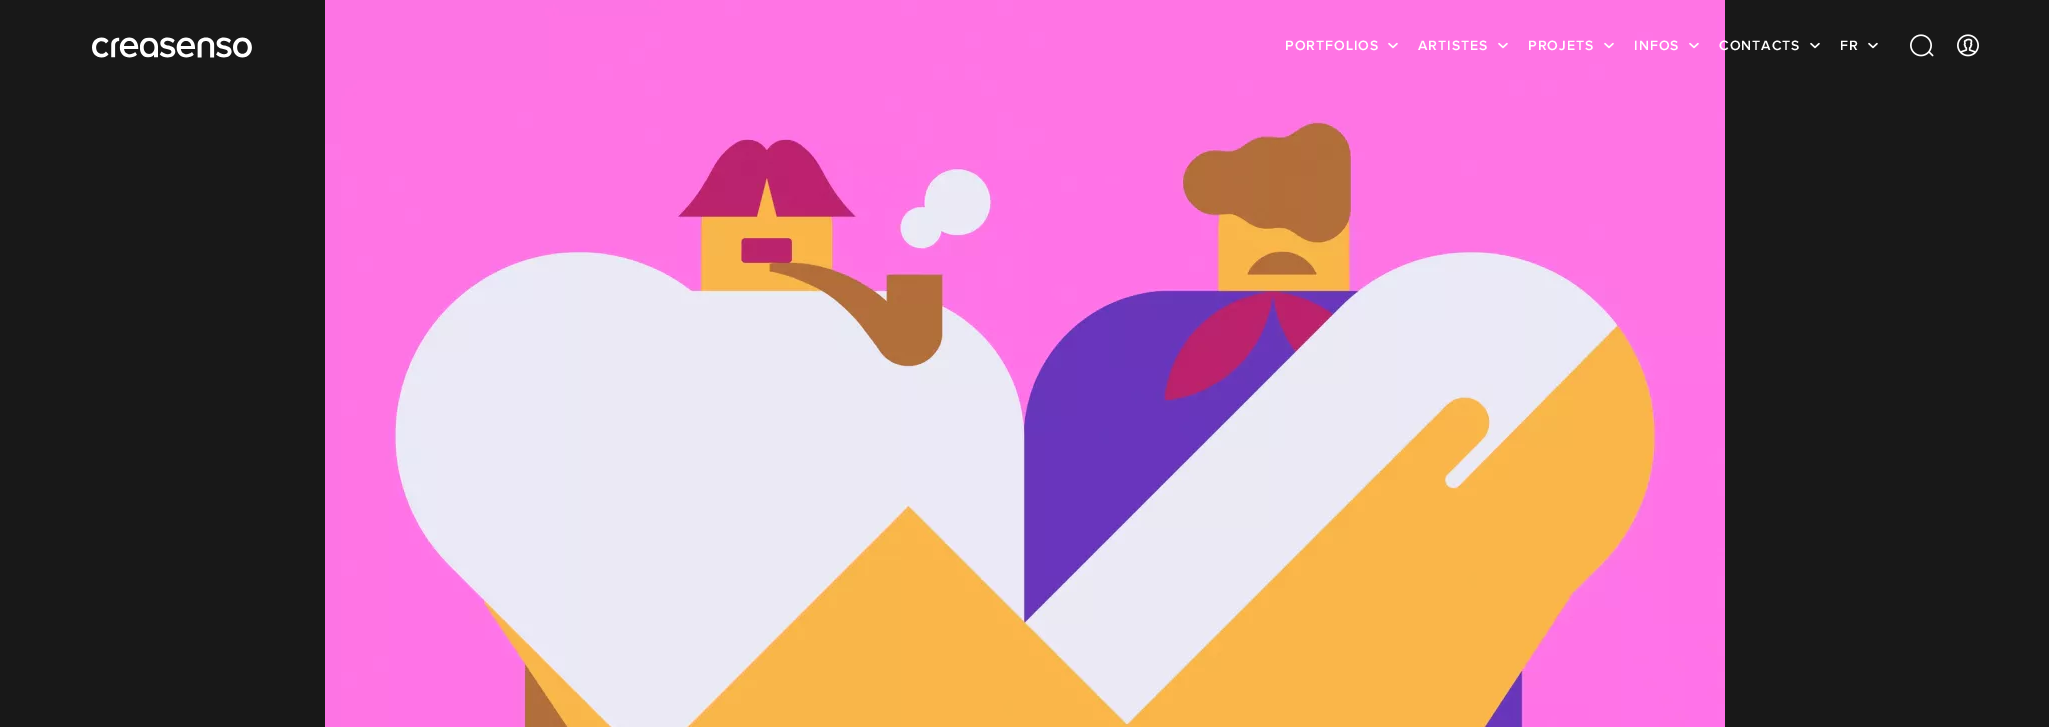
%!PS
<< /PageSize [2049 727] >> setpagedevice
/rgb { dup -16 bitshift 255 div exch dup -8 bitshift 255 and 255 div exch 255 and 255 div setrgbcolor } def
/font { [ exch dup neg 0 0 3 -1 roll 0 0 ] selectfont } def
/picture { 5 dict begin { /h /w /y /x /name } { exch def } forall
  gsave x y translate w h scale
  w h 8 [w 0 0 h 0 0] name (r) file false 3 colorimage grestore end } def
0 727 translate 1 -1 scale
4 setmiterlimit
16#181818 rgb
0 0 2049 727 rectfill
(pic1.raw) 325 0 1400 727 picture
(pic2.raw) 92 37 160 21 picture
/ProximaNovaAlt-SemiBold 14 font
16#FFFFFF rgb
1285 50 moveto 1 0 (PORTFOLIOS) ashow
(pic3.raw) 1388 42 10 7 picture
1418 50 moveto 1 0 (ARTISTES) ashow
(pic3.raw) 1498 42 10 7 picture
1528 50 moveto 1 0 (PROJETS) ashow
(pic3.raw) 1604 42 10 7 picture
1634 50 moveto 1 0 (INFOS) ashow
(pic3.raw) 1689 42 10 7 picture
1719 50 moveto 1 0 (CONTACTS) ashow
(pic4.raw) 1810 42 10 7 picture
1840 50 moveto 1 0 (FR) ashow
(pic4.raw) 1868 42 10 7 picture
(pic5.raw) 1910 34 24 23 picture
(pic6.raw) 1957 34 22 23 picture
showpage
